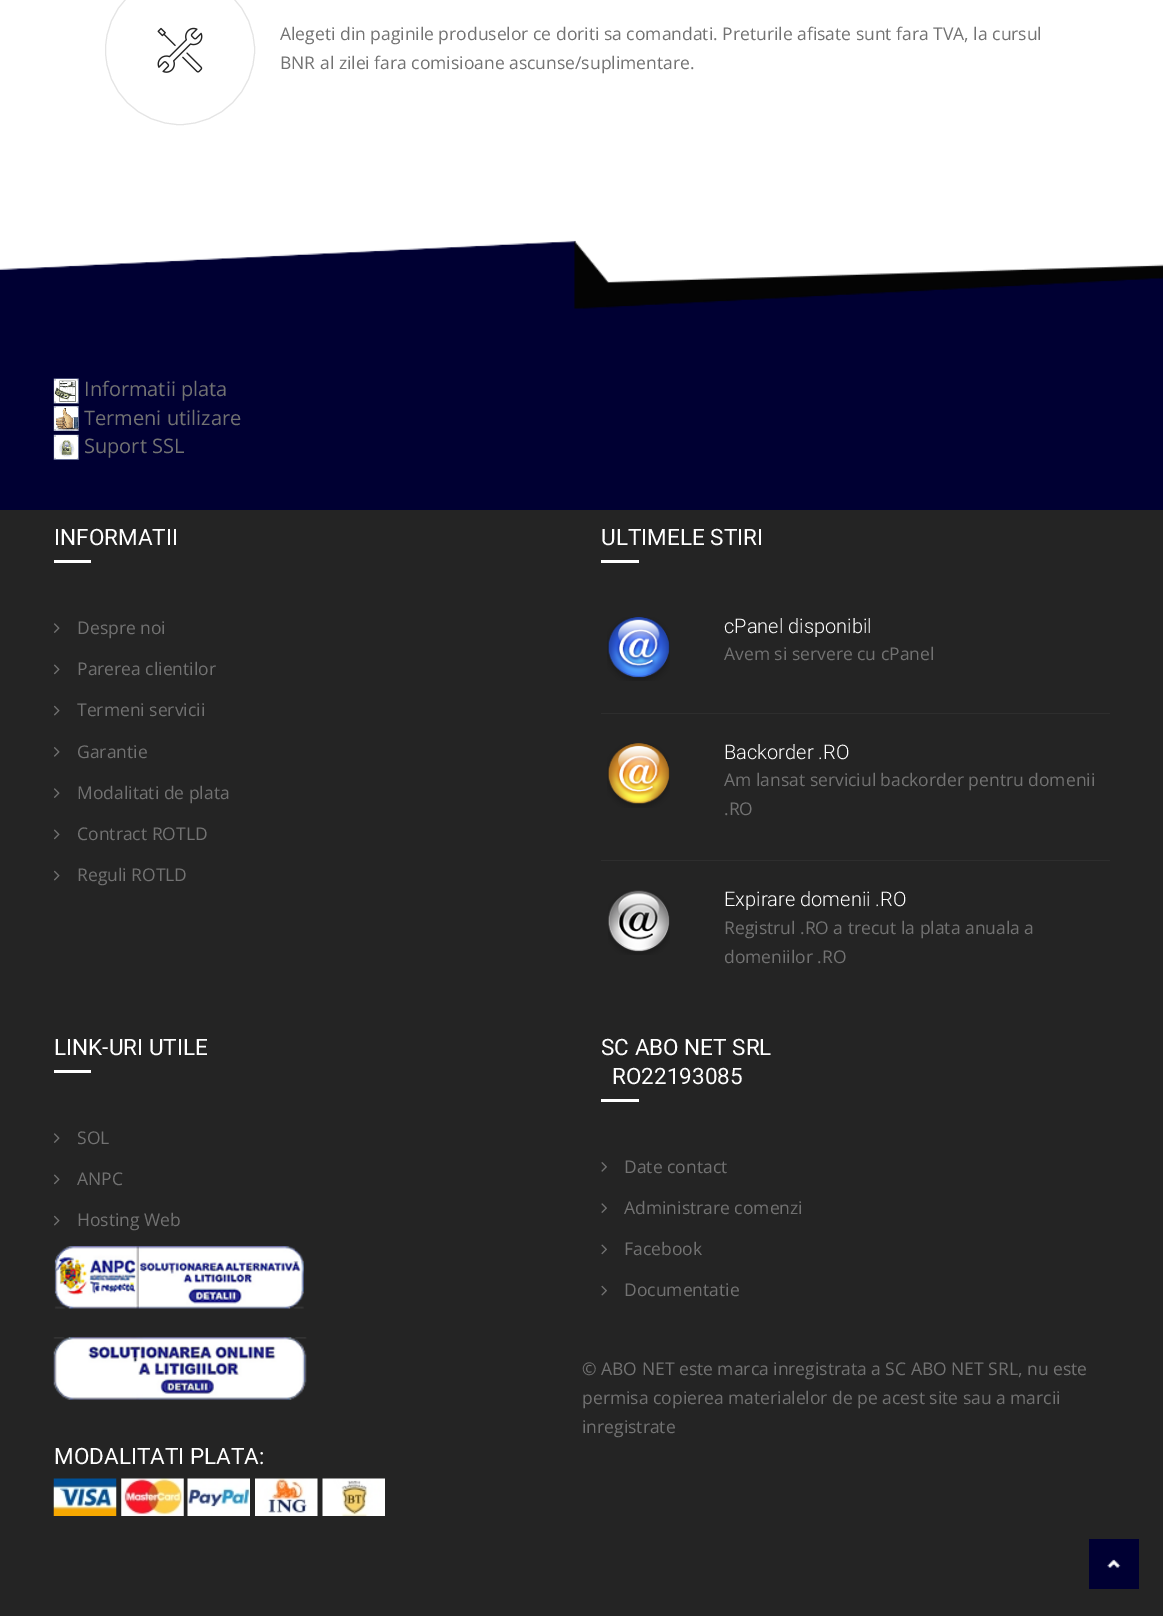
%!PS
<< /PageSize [1163 1616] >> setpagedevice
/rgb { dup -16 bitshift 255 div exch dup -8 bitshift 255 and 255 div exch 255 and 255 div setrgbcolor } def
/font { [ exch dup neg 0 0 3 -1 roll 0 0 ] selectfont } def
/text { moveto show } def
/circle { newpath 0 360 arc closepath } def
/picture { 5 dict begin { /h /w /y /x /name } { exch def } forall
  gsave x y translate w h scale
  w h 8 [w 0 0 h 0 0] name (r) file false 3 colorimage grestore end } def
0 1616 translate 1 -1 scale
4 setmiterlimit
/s1 { /OpenSans-Regular 17.5 font 16#727272 rgb } def
/s2 { /OpenSans-Regular 20 font 16#727272 rgb } def
/s3 { /Roboto-Regular 22.5 font 16#FFFFFF rgb } def
/s4 { /Roboto-Light 20 font 16#FFFFFF rgb } def
16#FFFFFF rgb
0 0 1163 1616 rectfill
16#E4E4E4 rgb
180 50 74.5 circle stroke
(pic1.raw) 157 27 46 46 picture
s1
(Alegeti din paginile produselor ce doriti sa comandati. Preturile afisate sunt fara TVA, la cursul) 280 40 text
(BNR al zilei fara comisioane ascunse/suplimentare.) 280 69 text
16#000033 rgb
0 240 1163 270 rectfill
(pic2.raw) 0 225 1163 84 picture
(pic3.raw) 53 378 26 26 picture
s2
(Informatii plata) 84 396 text
(pic4.raw) 53 406 26 25 picture
(Termeni utilizare) 84 425 text
(pic5.raw) 53 434 26 26 picture
(Suport SSL) 84 453 text
16#242424 rgb
0 510 1163 1106 rectfill
s3
(INFORMATII) 54 545 text
54 560 37 3 rectfill
(pic6.raw) 54 623 6 10 picture
s1
(Despre noi) 77 634 text
(pic7.raw) 54 664 6 11 picture
(Parerea clientilor) 77 675 text
(pic8.raw) 54 705 6 11 picture
(Termeni servicii) 77 716 text
(pic9.raw) 54 747 6 10 picture
(Garantie) 77 758 text
(pic6.raw) 54 788 6 10 picture
(Modalitati de plata) 77 799 text
(pic7.raw) 54 829 6 11 picture
(Contract ROTLD) 77 840 text
(pic8.raw) 54 870 6 11 picture
(Reguli ROTLD) 77 881 text
s3
(ULTIMELE STIRI) 601 545 text
601 560 38 3 rectfill
(pic10.raw) 607 617 63 64 picture
s4
(cPanel disponibil) 724 633 text
s1
(Avem si servere cu cPanel) 724 660 text
16#2E2E2E rgb
601 713 509 1 rectfill
(pic11.raw) 607 743 63 65 picture
s4
(Backorder .RO) 724 759 text
s1
(Am lansat serviciul backorder pentru domenii) 724 786 text
(.RO) 724 815 text
16#2E2E2E rgb
601 860 509 1 rectfill
(pic12.raw) 608 890 62 65 picture
s4
(Expirare domenii .RO) 724 906 text
s1
(Registrul .RO a trecut la plata anuala a) 724 934 text
(domeniilor .RO) 724 963 text
s3
(LINK-URI UTILE) 54 1055 text
54 1070 37 3 rectfill
(pic6.raw) 54 1133 6 10 picture
s1
(SOL) 77 1144 text
(pic7.raw) 54 1174 6 11 picture
(ANPC) 77 1185 text
(pic8.raw) 54 1215 6 11 picture
(Hosting Web) 77 1226 text
(pic13.raw) 54 1246 250 63 picture
(pic14.raw) 53 1337 254 63 picture
s3
(MODALITATI PLATA:) 54 1464 text
(pic15.raw) 53 1478 64 38 picture
(pic16.raw) 121 1478 63 38 picture
(pic17.raw) 187 1478 63 38 picture
(pic18.raw) 255 1478 63 38 picture
(pic19.raw) 322 1478 63 38 picture
(SC ABO NET SRL) 601 1055 text
(RO22193085) 612 1084 text
601 1099 38 3 rectfill
(pic20.raw) 601 1162 6 10 picture
s1
(Date contact) 624 1173 text
(pic21.raw) 601 1203 6 10 picture
(Administrare comenzi) 624 1214 text
(pic22.raw) 601 1244 6 11 picture
(Facebook) 624 1255 text
(pic23.raw) 601 1285 6 11 picture
(Documentatie) 624 1296 text
(© ABO NET este marca inregistrata a SC ABO NET SRL, nu este) 582 1375 text
(permisa copierea materialelor de pe acest site sau a marcii) 582 1404 text
(inregistrate) 582 1433 text
16#000033 rgb
1089 1539 50 50 rectfill
(pic24.raw) 1107 1559 14 9 picture
showpage
